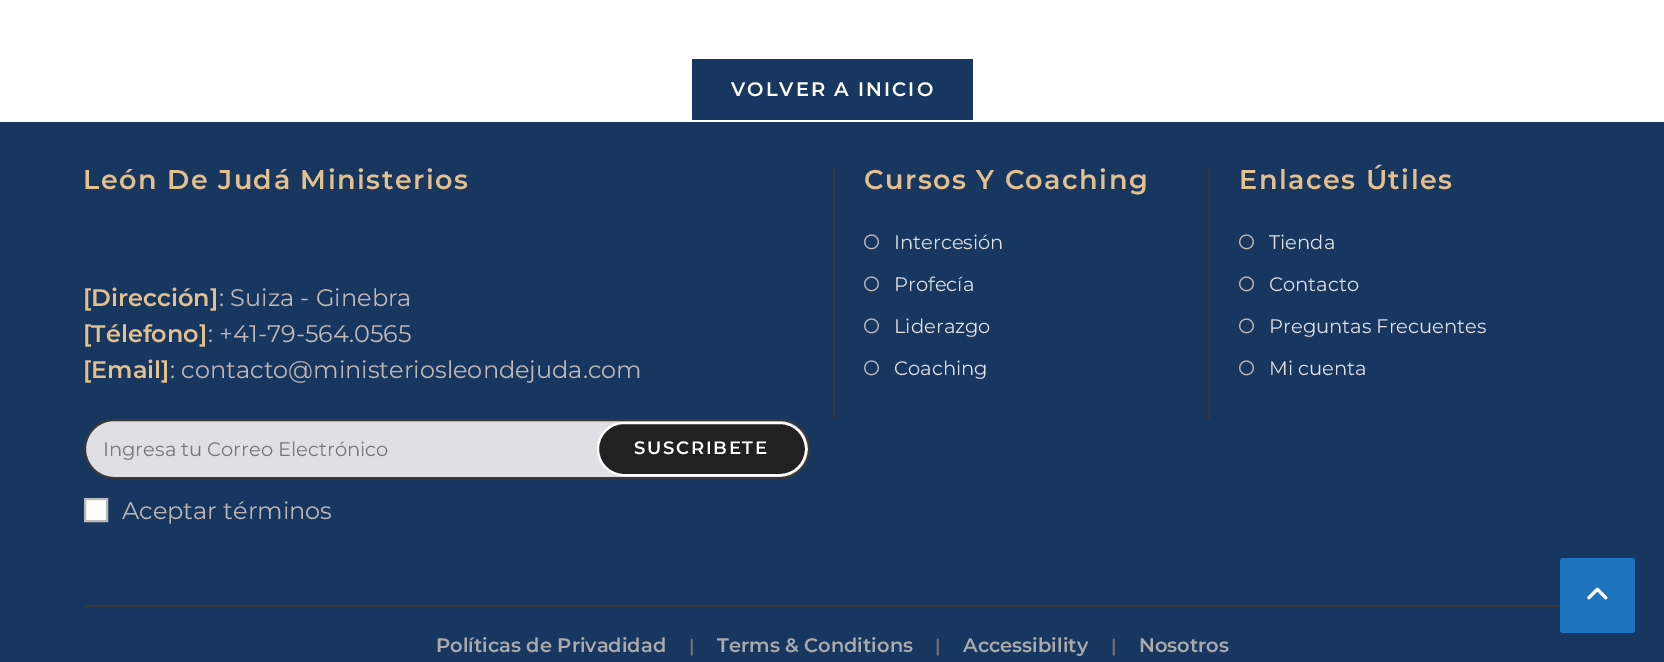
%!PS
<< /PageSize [1664 662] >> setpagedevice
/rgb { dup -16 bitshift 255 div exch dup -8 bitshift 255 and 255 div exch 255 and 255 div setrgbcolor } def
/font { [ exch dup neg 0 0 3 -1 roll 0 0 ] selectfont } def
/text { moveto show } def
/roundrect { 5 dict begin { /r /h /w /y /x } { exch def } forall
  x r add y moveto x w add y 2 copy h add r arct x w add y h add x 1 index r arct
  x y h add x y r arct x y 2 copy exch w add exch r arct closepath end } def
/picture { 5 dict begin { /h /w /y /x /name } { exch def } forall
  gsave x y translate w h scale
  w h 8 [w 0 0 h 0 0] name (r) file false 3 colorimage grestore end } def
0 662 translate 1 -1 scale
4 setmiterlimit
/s1 { /Montserrat-SemiBold 24 font 16#E3C08C rgb } def
/s2 { /Montserrat-Regular 24 font 16#C1B8B6 rgb } def
/s3 { /Montserrat-Regular 19.5 font 16#777777 rgb } def
/s4 { /Montserrat-Regular 19.5 font 16#E0DFE3 rgb } def
/s5 { /Montserrat-SemiBold 19.5 font 16#AAAAAA rgb } def
/s6 { /Montserrat-SemiBold 18 font 16#777777 rgb } def
16#FFFFFF rgb
0 0 1664 662 rectfill
16#173760 rgb
692 59 281 61 rectfill
/Montserrat-SemiBold 19.5 font
16#FFFFFF rgb
731 96 moveto 2 0 (VOLVER A INICIO) ashow
16#173760 rgb
0 122 1664 540 rectfill
/Montserrat-SemiBold 27 font
16#E3C08C rgb
83 189 moveto 1.5 0 (León De Judá Ministerios) ashow
s1
([Dirección]) 83 306 text
s2
(: Suiza - Ginebra) 219 306 text
s1
([Télefono]) 83 342 text
s2
(: +41-79-564.0565) 208 342 text
s1
([Email]) 83 378 text
s2
(: contacto@ministeriosleondejuda.com) 170 378 text
16#E0DFE3 rgb
85 420 724 58 29 roundrect gsave fill grestore
16#383838 rgb
2 setlinewidth
stroke
s3
(Ingresa tu Correo Electrónico) 103 456 text
16#212121 rgb
598 423 208 52 26 roundrect gsave fill grestore
16#FFFFFF rgb
stroke
/Montserrat-SemiBold 18 font
634 454 moveto 1.75 0 (SUSCRIBETE) ashow
85 499 moveto 107 499 lineto 107 521 lineto 85 521 lineto closepath gsave fill grestore
16#BBBBBB rgb
stroke
s2
(Aceptar términos) 122 519 text
16#373737 rgb
833 167 2 252 rectfill
/Montserrat-SemiBold 27 font
16#E3C08C rgb
864 189 moveto 1.5 0 (Cursos Y Coaching) ashow
(pic1.raw) 864 234 15 16 picture
s4
(Intercesión) 894 249 text
(pic1.raw) 864 276 15 16 picture
(Profecía) 894 291 text
(pic1.raw) 864 318 15 16 picture
(Liderazgo) 894 333 text
(pic1.raw) 864 360 15 16 picture
(Coaching) 894 375 text
16#373737 rgb
1208 167 2 252 rectfill
/Montserrat-SemiBold 27 font
16#E3C08C rgb
1239 189 moveto 1.5 0 (Enlaces Útiles) ashow
(pic1.raw) 1239 234 15 16 picture
s4
(Tienda) 1269 249 text
(pic1.raw) 1239 276 15 16 picture
(Contacto) 1269 291 text
(pic1.raw) 1239 318 15 16 picture
(Preguntas Frecuentes) 1269 333 text
(pic1.raw) 1239 360 15 16 picture
(Mi cuenta) 1269 375 text
16#373737 rgb
84 605 1476 2 rectfill
s5
(Políticas de Privadidad) 436 652 text
s6
(|) 689 652 text
s5
(Terms & Conditions) 717 652 text
s6
(|) 935 652 text
s5
(Accessibility) 963 652 text
s6
(|) 1111 652 text
s5
(Nosotros) 1139 652 text
16#1E73BE rgb
1560 558 75 75 3 roundrect fill
(pic2.raw) 1587 587 21 13 picture
showpage
